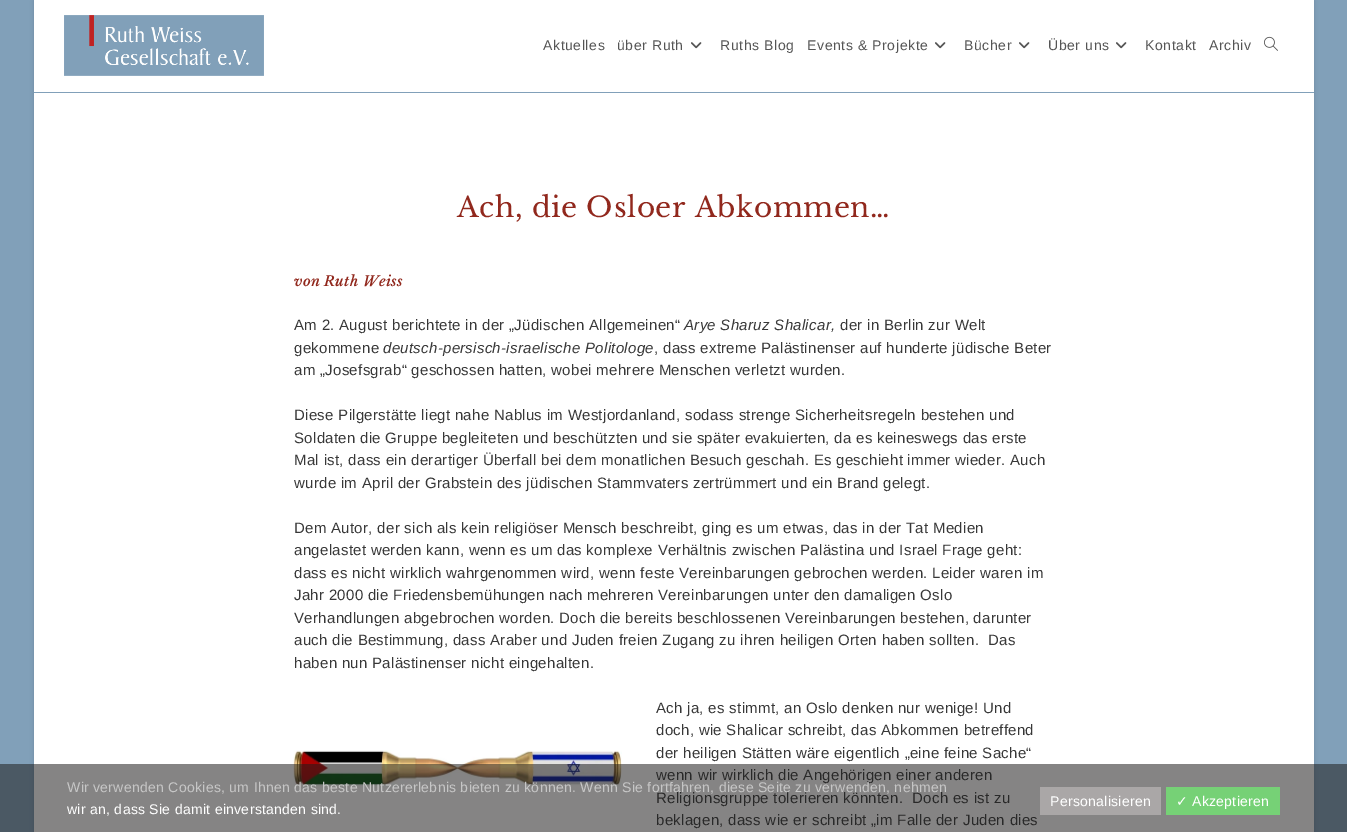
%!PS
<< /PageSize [1347 832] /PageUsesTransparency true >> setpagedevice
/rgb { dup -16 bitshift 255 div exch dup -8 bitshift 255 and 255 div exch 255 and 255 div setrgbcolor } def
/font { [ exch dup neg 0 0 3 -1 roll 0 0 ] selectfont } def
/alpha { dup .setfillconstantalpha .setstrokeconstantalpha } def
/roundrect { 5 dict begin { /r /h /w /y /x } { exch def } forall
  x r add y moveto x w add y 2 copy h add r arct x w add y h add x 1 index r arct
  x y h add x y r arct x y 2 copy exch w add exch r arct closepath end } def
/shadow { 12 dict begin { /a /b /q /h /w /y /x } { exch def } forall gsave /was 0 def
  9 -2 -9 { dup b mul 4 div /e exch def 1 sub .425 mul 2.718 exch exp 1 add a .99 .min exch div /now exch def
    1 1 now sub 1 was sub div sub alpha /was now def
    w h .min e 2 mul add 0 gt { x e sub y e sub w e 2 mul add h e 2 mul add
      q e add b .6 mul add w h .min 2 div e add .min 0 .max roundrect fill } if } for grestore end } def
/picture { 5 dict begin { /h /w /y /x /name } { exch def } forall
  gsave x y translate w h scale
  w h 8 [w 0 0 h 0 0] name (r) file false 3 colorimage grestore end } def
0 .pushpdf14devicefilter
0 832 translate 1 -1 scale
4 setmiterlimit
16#81A0B9 rgb
0 0 1347 832 rectfill
16#000000 rgb
34 1 1280 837 0 2 0.15 shadow
16#FFFFFF rgb
34 0 1280 832 rectfill
16#81A0B9 rgb
34 92 1280 1 rectfill
(pic1.raw) 64 15 200 61 picture
/LiberationSans-Regular 14 font
16#555555 rgb
543 50 moveto 0.6 0 (Aktuelles) ashow
617 50 moveto 0.6 0 (über Ruth) ashow
(pic2.raw) 691 42 11 7 picture
720 50 moveto 0.6 0 (Ruths Blog) ashow
807 50 moveto 0.6 0 (Events & Projekte) ashow
(pic2.raw) 935 42 11 7 picture
964 50 moveto 0.6 0 (Bücher) ashow
(pic2.raw) 1019 42 11 7 picture
1048 50 moveto 0.6 0 (Über uns) ashow
(pic2.raw) 1116 42 11 7 picture
1145 50 moveto 0.6 0 (Kontakt) ashow
1209 50 moveto 0.6 0 (Archiv) ashow
(pic3.raw) 1264 36 14 15 picture
/LibreBaskerville-Regular 28 font
16#91281D rgb
457 217 moveto 0.6 0 (Ach, die Osloer Abkommen…) ashow
/LibreBaskerville-SemiBoldItalic 14 font
294 286 moveto 0.3 0 (von Ruth Weiss) ashow
/LiberationSans-Regular 15 font
16#383838 rgb
294 330 moveto 0.3 0 (Am 2. August berichtete in der „Jüdischen Allgemeinen“) ashow
/LiberationSans-Italic 15 font
684 330 moveto 0.3 0 (Arye Sharuz Shalicar,) ashow
/LiberationSans-Regular 15 font
840 330 moveto 0.3 0 (der in Berlin zur Welt) ashow
294 353 moveto 0.3 0 (gekommene) ashow
/LiberationSans-Italic 15 font
383 353 moveto 0.3 0 (deutsch-persisch-israelische Politologe) ashow
/LiberationSans-Regular 15 font
654 353 moveto 0.3 0 (, dass extreme Palästinenser auf hunderte jüdische Beter) ashow
294 375 moveto 0.3 0 (am „Josefsgrab“ geschossen hatten, wobei mehrere Menschen verletzt wurden.) ashow
294 420 moveto 0.3 0 (Diese Pilgerstätte liegt nahe Nablus im Westjordanland, sodass strenge Sicherheitsregeln bestehen und) ashow
294 443 moveto 0.3 0 (Soldaten die Gruppe begleiteten und beschützten und sie später evakuierten, da es keineswegs das erste) ashow
294 465 moveto 0.3 0 (Mal ist, dass ein derartiger Überfall bei dem monatlichen Besuch geschah. Es geschieht immer wieder. Auch) ashow
294 488 moveto 0.3 0 (wurde im April der Grabstein des jüdischen Stammvaters zertrümmert und ein Brand gelegt.) ashow
294 533 moveto 0.3 0 (Dem Autor, der sich als kein religiöser Mensch beschreibt, ging es um etwas, das in der Tat Medien) ashow
294 555 moveto 0.3 0 (angelastet werden kann, wenn es um das komplexe Verhältnis zwischen Palästina und Israel Frage geht:) ashow
294 578 moveto 0.3 0 (dass es nicht wirklich wahrgenommen wird, wenn feste Vereinbarungen gebrochen werden. Leider waren im) ashow
294 600 moveto 0.3 0 (Jahr 2000 die Friedensbemühungen nach mehreren Vereinbarungen unter den damaligen Oslo) ashow
294 623 moveto 0.3 0 (Verhandlungen abgebrochen worden. Doch die bereits beschlossenen Vereinbarungen bestehen, darunter) ashow
294 645 moveto 0.3 0 (auch die Bestimmung, dass Araber und Juden freien Zugang zu ihren heiligen Orten haben sollten.  Das) ashow
294 668 moveto 0.3 0 (haben nun Palästinenser nicht eingehalten.) ashow
(pic4.raw) 293 750 329 38 picture
656 713 moveto 0.3 0 (Ach ja, es stimmt, an Oslo denken nur wenige! Und) ashow
656 735 moveto 0.3 0 (doch, wie Shalicar schreibt, das Abkommen betreffend) ashow
656 758 moveto 0.3 0 (der heiligen Stätten wäre eigentlich „eine feine Sache“) ashow
656 780 moveto 0.3 0 (wenn wir wirklich die Angehörigen einer anderen) ashow
656 803 moveto 0.3 0 (Religionsgruppe tolerieren könnten.  Doch es ist zu) ashow
656 825 moveto 0.3 0 (beklagen, dass wie er schreibt „im Falle der Juden dies) ashow
0.54 alpha
16#1D1C1C rgb
0 764 1347 68 rectfill
/LiberationSans-Regular 14 font
1 alpha
16#C6C6C6 rgb
67 792 moveto 0.3 0 (Wir verwenden Cookies, um Ihnen das beste Nutzererlebnis bieten zu können. Wenn Sie fortfahren, diese Seite zu verwenden, nehmen) ashow
16#FFFFFF rgb
67 814 moveto 0.3 0 (wir an, dass Sie damit einverstanden sind.) ashow
16#AAA7A7 rgb
1040 787 121 28 rectfill
16#FFFFFF rgb
1050 806 moveto 0.3 0 (Personalisieren) ashow
16#76D176 rgb
1166 787 114 28 rectfill
/DejaVuSans-Regular 14 font
16#FFFFFF rgb
1176 806 moveto 0.3 0 (✓) ashow
/LiberationSans-Regular 14 font
1192 806 moveto 0.3 0 (Akzeptieren) ashow
.poppdf14devicefilter showpage
